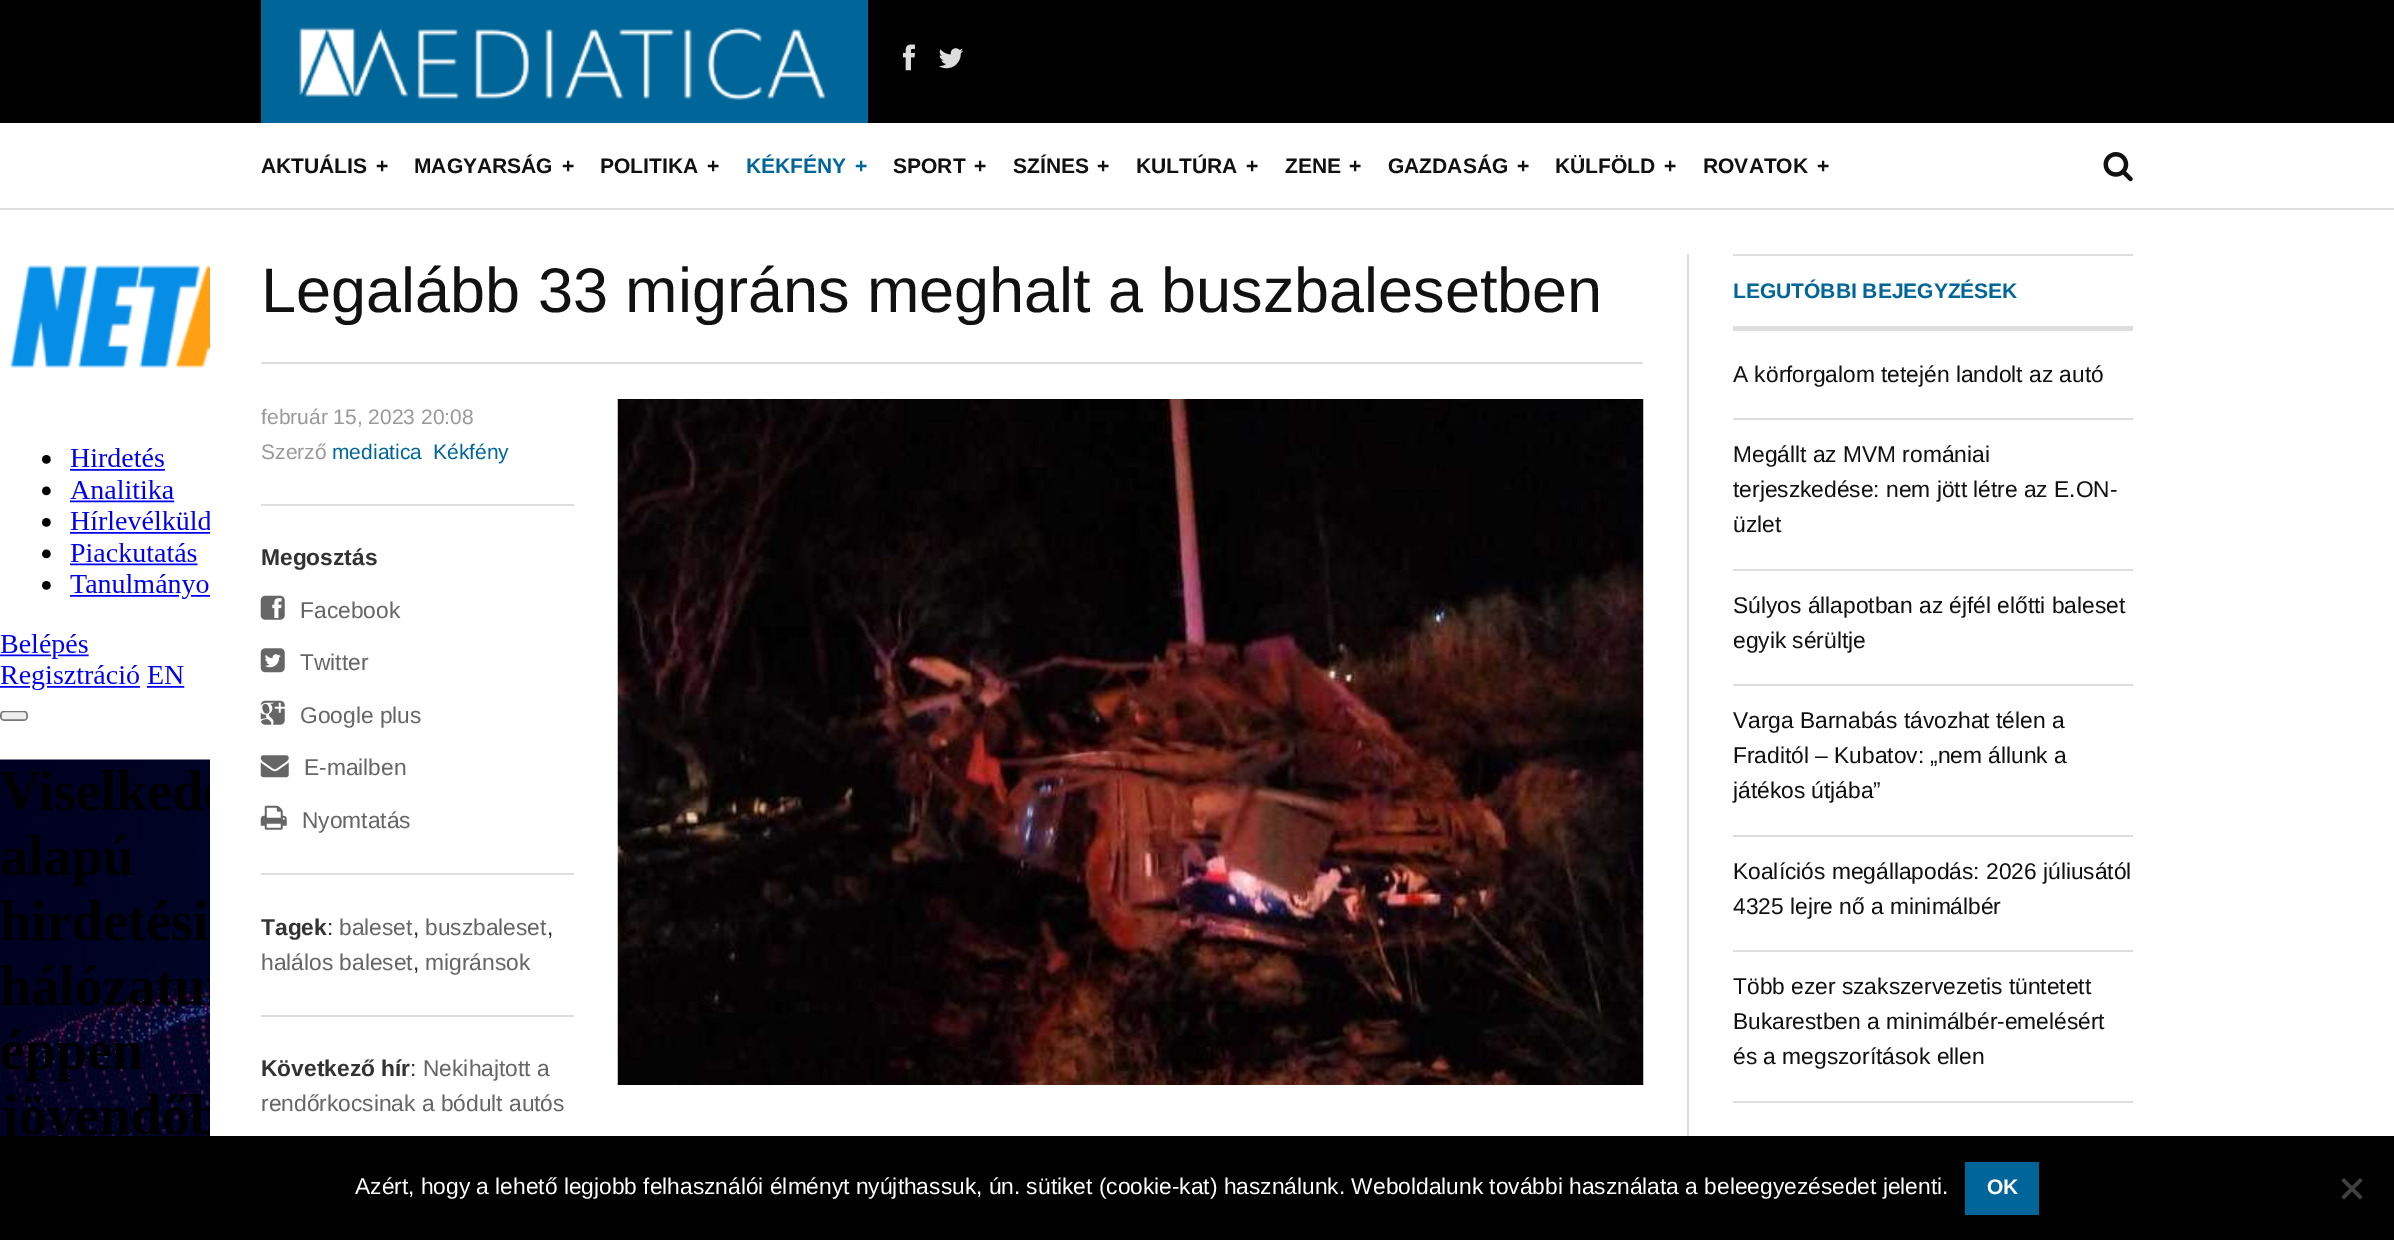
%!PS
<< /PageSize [2394 1240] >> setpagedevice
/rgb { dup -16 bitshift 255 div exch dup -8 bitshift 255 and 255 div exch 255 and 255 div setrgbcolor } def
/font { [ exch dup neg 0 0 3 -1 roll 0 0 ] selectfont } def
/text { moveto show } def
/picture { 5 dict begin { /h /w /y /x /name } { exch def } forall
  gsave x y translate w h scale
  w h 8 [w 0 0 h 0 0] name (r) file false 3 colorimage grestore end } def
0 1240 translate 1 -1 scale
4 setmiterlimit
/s1 { /LiberationSans-Bold 21 font 16#111111 rgb } def
/s2 { /LiberationSans-Bold 21 font 16#006699 rgb } def
/s3 { /LiberationSans-Regular 63 font 16#111111 rgb } def
/s4 { /LiberationSans-Regular 21 font 16#999999 rgb } def
/s5 { /LiberationSans-Regular 21 font 16#006699 rgb } def
/s6 { /LiberationSans-Bold 22.75 font 16#333333 rgb } def
/s7 { /LiberationSans-Regular 22.75 font 16#666666 rgb } def
/s8 { /LiberationSans-Regular 22.75 font 16#333333 rgb } def
/s9 { /LiberationSans-Regular 22.75 font 16#111111 rgb } def
/s10 { /LiberationSans-Regular 22.75 font 16#FFFFFF rgb } def
/s11 { /LiberationSans-Bold 21 font 16#FFFFFF rgb } def
16#FFFFFF rgb
0 0 2394 1240 rectfill
16#000000 rgb
0 0 2394 123 rectfill
16#006699 rgb
261 0 607 123 rectfill
(pic1.raw) 299 27 528 74 picture
(pic2.raw) 903 44 12 27 picture
(pic3.raw) 938 48 26 21 picture
16#DDDDDD rgb
0 208 2394 2 rectfill
s1
(AKTUÁLIS) 261 173 text
(+) 376 173 text
(MAGYARSÁG) 414 173 text
(+) 562 173 text
(POLITIKA) 600 173 text
(+) 707 173 text
s2
(KÉKFÉNY) 746 173 text
(+) 855 173 text
s1
(SPORT) 893 173 text
(+) 974 173 text
(SZÍNES) 1013 173 text
(+) 1097 173 text
(KULTÚRA) 1136 173 text
(+) 1246 173 text
(ZENE) 1285 173 text
(+) 1349 173 text
(GAZDASÁG) 1388 173 text
(+) 1517 173 text
(KÜLFÖLD) 1555 173 text
(+) 1664 173 text
(ROVATOK) 1703 173 text
(+) 1817 173 text
(pic4.raw) 2103 152 30 30 picture
(pic5.raw) 0 265 210 871 picture
s3
(Legalább 33 migráns meghalt a buszbalesetben) 261 312 text
16#DDDDDD rgb
261 362 1382 2 rectfill
s4
(február 15, 2023 20:08) 261 424 text
(Szerző) 261 459 text
s5
(mediatica) 332 459 text
(Kékfény) 433 459 text
16#DDDDDD rgb
261 504 313 2 rectfill
s6
(Megosztás) 261 565 text
(pic6.raw) 260 595 25 25 picture
s7
(Facebook) 300 618 text
(pic7.raw) 260 648 25 25 picture
(Twitter) 300 670 text
(pic8.raw) 260 700 25 25 picture
(Google plus) 300 723 text
(pic9.raw) 260 755 29 23 picture
(E-mailben) 304 775 text
(pic10.raw) 260 805 27 25 picture
(Nyomtatás) 302 828 text
16#DDDDDD rgb
261 873 313 2 rectfill
s6
(Tagek) 261 935 text
s8
(:) 327 935 text
s7
(baleset) 339 935 text
s8
(,) 413 935 text
s7
(buszbaleset) 425 935 text
s8
(,) 547 935 text
s7
(halálos baleset) 261 970 text
s8
(,) 413 970 text
s7
(migránsok) 425 970 text
16#DDDDDD rgb
261 1015 313 2 rectfill
s6
(Következő hír) 261 1076 text
s8
(:) 410 1076 text
s7
(Nekihajtott a) 423 1076 text
(rendőrkocsinak a bódult autós) 261 1111 text
(pic11.raw) 617 399 1027 686 picture
16#DDDDDD rgb
1687 254 2 882 rectfill
1733 254 400 2 rectfill
1733 326 400 5 rectfill
s2
(LEGUTÓBBI BEJEGYZÉSEK) 1733 298 text
s9
(A körforgalom tetején landolt az autó) 1733 382 text
16#DDDDDD rgb
1733 418 400 2 rectfill
s9
(Megállt az MVM romániai) 1733 462 text
(terjeszkedése: nem jött létre az E.ON-) 1733 497 text
(üzlet) 1733 532 text
16#DDDDDD rgb
1733 569 400 2 rectfill
s9
(Súlyos állapotban az éjfél előtti baleset) 1733 613 text
(egyik sérültje) 1733 648 text
16#DDDDDD rgb
1733 684 400 2 rectfill
s9
(Varga Barnabás távozhat télen a) 1733 728 text
(Fraditól – Kubatov: „nem állunk a) 1733 763 text
(játékos útjába”) 1733 798 text
16#DDDDDD rgb
1733 835 400 2 rectfill
s9
(Koalíciós megállapodás: 2026 júliusától) 1733 879 text
(4325 lejre nő a minimálbér) 1733 914 text
16#DDDDDD rgb
1733 950 400 2 rectfill
s9
(Több ezer szakszervezetis tüntetett) 1733 994 text
(Bukarestben a minimálbér-emelésért) 1733 1029 text
(és a megszorítások ellen) 1733 1064 text
16#DDDDDD rgb
1733 1101 400 2 rectfill
16#000000 rgb
0 1136 2394 104 rectfill
s10
(Azért, hogy a lehető legjobb felhasználói élményt nyújthassuk, ún. sütiket \(cookie-kat\) használunk. Weboldalunk további használata a beleegyezésedet jelenti.) 355 1194 text
16#006699 rgb
1965 1162 74 53 rectfill
s11
(OK) 1987 1194 text
16#404040 rgb
2360 1178 moveto 2362.5 1180.5 lineto 2344 1199.5 lineto 2341.5 1197 lineto closepath fill
2341.5 1180.5 moveto 2344 1178 lineto 2362.5 1197 lineto 2360 1199.5 lineto closepath fill
showpage
